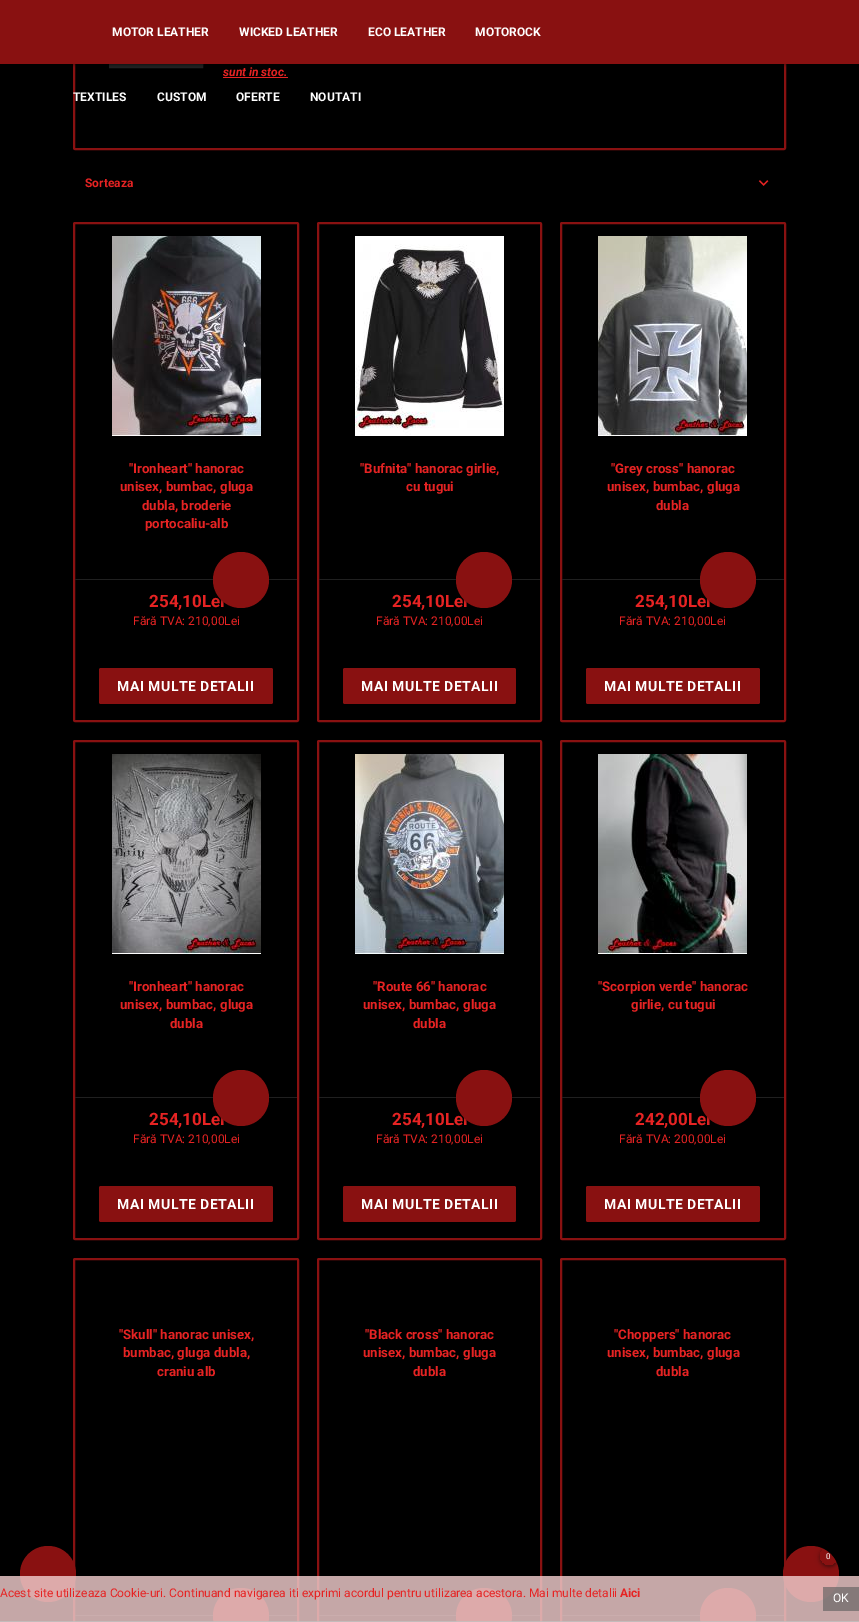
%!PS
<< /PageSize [859 1622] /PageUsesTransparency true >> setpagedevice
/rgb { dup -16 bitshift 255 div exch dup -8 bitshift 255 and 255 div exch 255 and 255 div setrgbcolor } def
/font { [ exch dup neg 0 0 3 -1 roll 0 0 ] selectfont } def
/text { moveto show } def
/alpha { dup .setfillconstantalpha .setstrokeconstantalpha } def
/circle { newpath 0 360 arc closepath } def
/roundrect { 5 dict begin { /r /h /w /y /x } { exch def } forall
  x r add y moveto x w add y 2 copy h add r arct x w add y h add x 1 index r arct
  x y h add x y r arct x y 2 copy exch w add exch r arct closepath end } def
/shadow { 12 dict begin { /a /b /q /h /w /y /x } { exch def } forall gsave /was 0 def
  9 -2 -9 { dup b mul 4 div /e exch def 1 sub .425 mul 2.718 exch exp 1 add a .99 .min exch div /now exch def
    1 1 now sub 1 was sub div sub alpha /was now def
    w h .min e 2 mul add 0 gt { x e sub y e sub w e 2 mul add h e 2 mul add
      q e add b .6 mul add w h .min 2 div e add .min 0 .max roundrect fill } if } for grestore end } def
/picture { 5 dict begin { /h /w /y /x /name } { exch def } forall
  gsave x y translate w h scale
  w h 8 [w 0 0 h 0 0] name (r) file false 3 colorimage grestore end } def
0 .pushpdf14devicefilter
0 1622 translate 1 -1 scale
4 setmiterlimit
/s1 { /Roboto-Bold 12 font 16#FFFFFF rgb } def
/s2 { /Roboto-BoldItalic 12 font 16#E62323 rgb } def
/s3 { /Roboto-Bold 12 font 16#E62323 rgb } def
/s4 { /Roboto-Bold 13.25 font 16#E62323 rgb } def
/s5 { /Roboto-Bold 17 font 16#E62323 rgb } def
/s6 { /Roboto-Regular 12 font 16#E62323 rgb } def
/s7 { /Roboto-Regular 12 font 16#FFFFFF rgb } def
16#000000 rgb
0 0 859 1622 rectfill
16#891111 rgb
2 setlinewidth
74 -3 711 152 1 roundrect stroke
16#222222 rgb
10 setlinewidth
114 -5 84 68 rectstroke
16#000000 rgb
0 1 859 64 0 2.5 0.2 shadow
2 5 855 60 0 0.5 0.12 shadow
0 2 859 64 0 1 0.14 shadow
16#891111 rgb
0 0 859 64 rectfill
s1
(MOTOR LEATHER) 112 36 text
(WICKED LEATHER) 239 36 text
(ECO LEATHER) 368 36 text
(MOTOROCK) 475 36 text
(TEXTILES) 73 101 text
(CUSTOM) 157 101 text
(OFERTE) 236 101 text
(NOUTATI) 310 101 text
s2
(sunt in stoc.) 223 76 text
223 77 65 1 rectfill
s3
(Sorteaza) 85 187 text
(pic1.raw) 758 180 11 6 picture
16#891111 rgb
2 setlinewidth
74 223 224 498 1 roundrect stroke
(pic2.raw) 112 236 149 200 picture
s4
("Ironheart" hanorac) 129 473 text
(unisex, bumbac, gluga) 120 491 text
(dubla, broderie) 142 510 text
(portocaliu-alb) 145 528 text
16#202020 rgb
75 579 222 1 rectfill
s5
(254,10Lei) 149 607 text
16#000000 rgb
213 553 56 56 28 2.5 0.2 shadow
215 557 52 52 26 0.5 0.12 shadow
213 554 56 56 28 1 0.14 shadow
16#891111 rgb
241 580 28 circle fill
s6
(Fără TVA: 210,00Lei) 133 625 text
16#891111 rgb
99 668 174 36 2 roundrect fill
/Roboto-Bold 14 font
16#FFFFFF rgb
117 691 moveto 0.5 0 (MAI MULTE DETALII) ashow
16#891111 rgb
318 223 223 498 1 roundrect stroke
(pic3.raw) 355 236 149 200 picture
s4
("Bufnita" hanorac girlie,) 360 473 text
(cu tugui) 406 491 text
16#202020 rgb
319 579 221 1 rectfill
s5
(254,10Lei) 392 607 text
16#000000 rgb
456 553 56 56 28 2.5 0.2 shadow
458 557 52 52 26 0.5 0.12 shadow
456 554 56 56 28 1 0.14 shadow
16#891111 rgb
484 580 28 circle fill
s6
(Fără TVA: 210,00Lei) 376 625 text
16#891111 rgb
343 668 173 36 2 roundrect fill
/Roboto-Bold 14 font
16#FFFFFF rgb
361 691 moveto 0.5 0 (MAI MULTE DETALII) ashow
16#891111 rgb
561 223 224 498 1 roundrect stroke
(pic4.raw) 598 236 149 200 picture
s4
("Grey cross" hanorac) 611 473 text
(unisex, bumbac, gluga) 607 491 text
(dubla) 656 510 text
16#202020 rgb
562 579 222 1 rectfill
s5
(254,10Lei) 635 607 text
16#000000 rgb
700 553 56 56 28 2.5 0.2 shadow
702 557 52 52 26 0.5 0.12 shadow
700 554 56 56 28 1 0.14 shadow
16#891111 rgb
728 580 28 circle fill
s6
(Fără TVA: 210,00Lei) 619 625 text
16#891111 rgb
586 668 174 36 2 roundrect fill
/Roboto-Bold 14 font
16#FFFFFF rgb
604 691 moveto 0.5 0 (MAI MULTE DETALII) ashow
16#891111 rgb
74 741 224 498 1 roundrect stroke
(pic5.raw) 112 754 149 200 picture
s4
("Ironheart" hanorac) 129 991 text
(unisex, bumbac, gluga) 120 1009 text
(dubla) 170 1028 text
16#202020 rgb
75 1097 222 1 rectfill
s5
(254,10Lei) 149 1125 text
16#000000 rgb
213 1071 56 56 28 2.5 0.2 shadow
215 1075 52 52 26 0.5 0.12 shadow
213 1072 56 56 28 1 0.14 shadow
16#891111 rgb
241 1098 28 circle fill
s6
(Fără TVA: 210,00Lei) 133 1143 text
16#891111 rgb
99 1186 174 36 2 roundrect fill
/Roboto-Bold 14 font
16#FFFFFF rgb
117 1209 moveto 0.5 0 (MAI MULTE DETALII) ashow
16#891111 rgb
318 741 223 498 1 roundrect stroke
(pic6.raw) 355 754 149 200 picture
s4
("Route 66" hanorac) 373 991 text
(unisex, bumbac, gluga) 363 1009 text
(dubla) 413 1028 text
16#202020 rgb
319 1097 221 1 rectfill
s5
(254,10Lei) 392 1125 text
16#000000 rgb
456 1071 56 56 28 2.5 0.2 shadow
458 1075 52 52 26 0.5 0.12 shadow
456 1072 56 56 28 1 0.14 shadow
16#891111 rgb
484 1098 28 circle fill
s6
(Fără TVA: 210,00Lei) 376 1143 text
16#891111 rgb
343 1186 173 36 2 roundrect fill
/Roboto-Bold 14 font
16#FFFFFF rgb
361 1209 moveto 0.5 0 (MAI MULTE DETALII) ashow
16#891111 rgb
561 741 224 498 1 roundrect stroke
(pic7.raw) 598 754 149 200 picture
s4
("Scorpion verde" hanorac) 598 991 text
(girlie, cu tugui) 631 1009 text
16#202020 rgb
562 1097 222 1 rectfill
s5
(242,00Lei) 635 1125 text
16#000000 rgb
700 1071 56 56 28 2.5 0.2 shadow
702 1075 52 52 26 0.5 0.12 shadow
700 1072 56 56 28 1 0.14 shadow
16#891111 rgb
728 1098 28 circle fill
s6
(Fără TVA: 200,00Lei) 619 1143 text
16#891111 rgb
586 1186 174 36 2 roundrect fill
/Roboto-Bold 14 font
16#FFFFFF rgb
604 1209 moveto 0.5 0 (MAI MULTE DETALII) ashow
16#891111 rgb
74 1259 224 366 1 roundrect stroke
s4
("Skull" hanorac unisex,) 119 1339 text
(bumbac, gluga dubla,) 123 1357 text
(craniu alb) 157 1376 text
16#202020 rgb
75 1615 222 1 rectfill
16#891111 rgb
241 1616 28 circle fill
318 1259 223 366 1 roundrect stroke
s4
("Black cross" hanorac) 365 1339 text
(unisex, bumbac, gluga) 363 1357 text
(dubla) 413 1376 text
16#202020 rgb
319 1615 221 1 rectfill
16#891111 rgb
484 1616 28 circle fill
561 1259 224 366 1 roundrect stroke
s4
("Choppers" hanorac) 614 1339 text
(unisex, bumbac, gluga) 607 1357 text
(dubla) 656 1376 text
16#202020 rgb
562 1615 222 1 rectfill
16#891111 rgb
728 1616 28 circle fill
16#000000 rgb
18 1560 60 60 30 12 0.14 shadow
16#891111 rgb
48 1574 28 circle fill
16#000000 rgb
781 1560 60 60 30 12 0.14 shadow
16#891111 rgb
811 1574 28 circle fill
gsave
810 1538 moveto 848 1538 lineto 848 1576 lineto 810 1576 lineto closepath 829 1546 moveto 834.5 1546 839 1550.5 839 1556 curveto 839 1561.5 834.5 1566 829 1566 curveto 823.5 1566 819 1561.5 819 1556 curveto 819 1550.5 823.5 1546 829 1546 curveto closepath eoclip newpath
16#000000 rgb
819 1547 20 20 10 2.5 0.2 shadow
grestore
gsave
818 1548 moveto 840 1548 lineto 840 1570 lineto 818 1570 lineto closepath 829 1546 moveto 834.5 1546 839 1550.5 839 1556 curveto 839 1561.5 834.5 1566 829 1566 curveto 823.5 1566 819 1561.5 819 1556 curveto 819 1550.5 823.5 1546 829 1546 curveto closepath eoclip newpath
16#000000 rgb
821 1551 16 16 8 0.5 0.12 shadow
grestore
gsave
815 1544 moveto 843 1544 lineto 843 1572 lineto 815 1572 lineto closepath 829 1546 moveto 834.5 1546 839 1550.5 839 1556 curveto 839 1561.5 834.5 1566 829 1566 curveto 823.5 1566 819 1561.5 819 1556 curveto 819 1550.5 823.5 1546 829 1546 curveto closepath eoclip newpath
16#000000 rgb
819 1548 20 20 10 1 0.14 shadow
grestore
/Roboto-Regular 8 font
16#FFFFFF rgb
826 1559 moveto 0.5 0 (0) ashow
0.82 alpha
16#F0CCCC rgb
0 1576 859 46 rectfill
0.73 alpha
16#C3C3C3 rgb
0 1621 859 1 rectfill
1 alpha
s6
(Acest site utilizeaza Cookie-uri. Continuand navigarea iti exprimi acordul pentru utilizarea acestora. Mai multe detalii) 0 1597 text
s3
(Aici) 620 1597 text
0.65 alpha
16#616161 rgb
823 1587 36 24 rectfill
1 alpha
s7
(OK) 833 1602 text
.poppdf14devicefilter showpage
